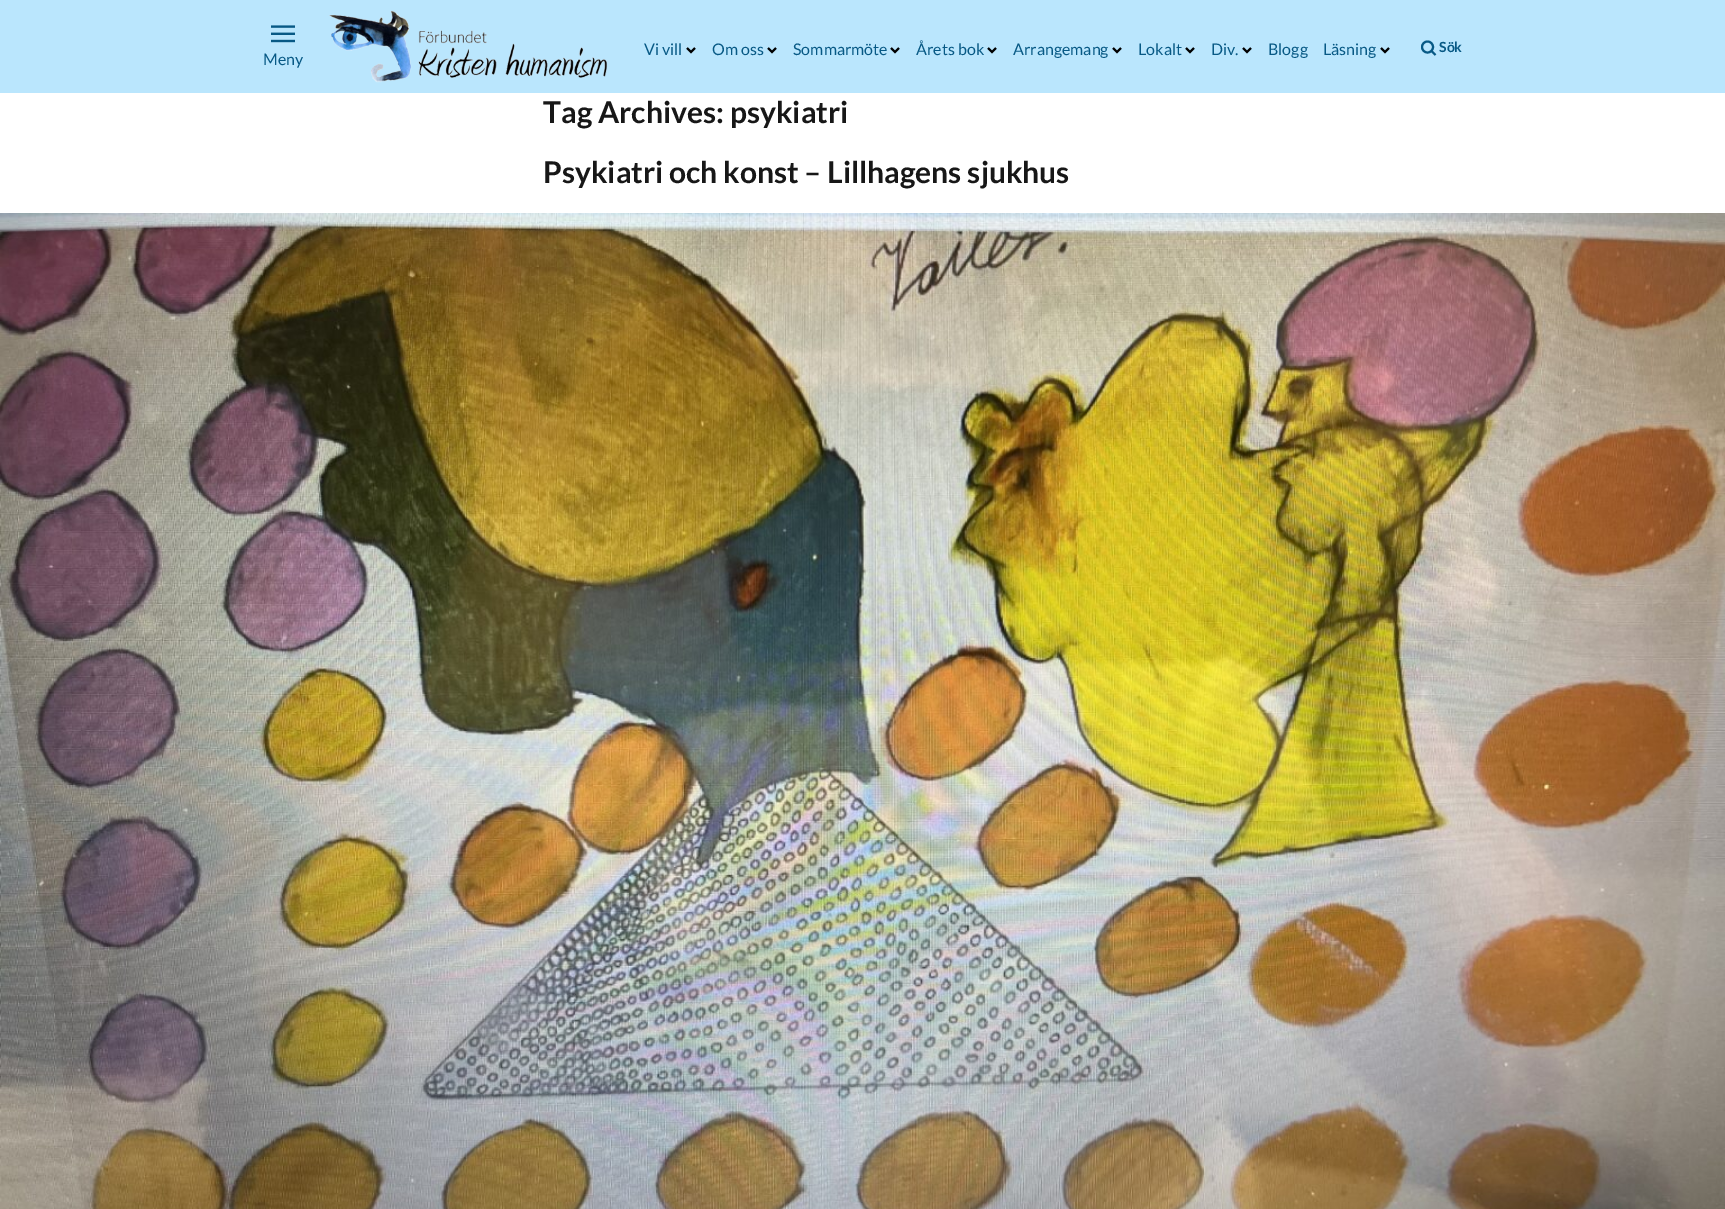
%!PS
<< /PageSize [1725 1209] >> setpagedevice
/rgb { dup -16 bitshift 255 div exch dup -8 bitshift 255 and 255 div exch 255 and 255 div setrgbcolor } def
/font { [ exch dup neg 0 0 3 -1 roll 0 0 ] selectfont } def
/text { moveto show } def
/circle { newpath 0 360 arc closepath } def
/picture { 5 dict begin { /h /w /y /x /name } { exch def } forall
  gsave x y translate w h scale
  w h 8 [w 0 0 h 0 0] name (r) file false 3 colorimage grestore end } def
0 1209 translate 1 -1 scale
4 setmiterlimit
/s1 { /Lato-Regular 16 font 16#075985 rgb } def
/s2 { /Lato-Bold 14 font 16#075985 rgb } def
/s3 { /Lato-Bold 30 font 16#171717 rgb } def
16#FFFFFF rgb
0 0 1725 1209 rectfill
16#BAE6FD rgb
0 0 1725 93 rectfill
(pic1.raw) 329 10 279 73 picture
s1
(Vi vill) 644 55 text
16#000000 rgb
2 setlinewidth
687 48 moveto 691 52 lineto 695 48 lineto stroke
s1
(Om oss) 712 55 text
16#000000 rgb
768 48 moveto 772 52 lineto 776 48 lineto stroke
s1
(Sommarmöte) 793 55 text
16#000000 rgb
891 48 moveto 895 52 lineto 899 48 lineto stroke
s1
(Årets bok) 916 55 text
16#000000 rgb
988 48 moveto 992 52 lineto 996 48 lineto stroke
s1
(Arrangemang) 1013 55 text
16#000000 rgb
1113 48 moveto 1117 52 lineto 1121 48 lineto stroke
s1
(Lokalt) 1138 55 text
16#000000 rgb
1186 48 moveto 1190 52 lineto 1194 48 lineto stroke
s1
(Div.) 1211 55 text
16#000000 rgb
1243 48 moveto 1247 52 lineto 1251 48 lineto stroke
s1
(Blogg) 1268 55 text
(Läsning) 1323 55 text
16#000000 rgb
1381 48 moveto 1385 52 lineto 1389 48 lineto stroke
16#075985 rgb
1427.5 47 5.5 circle stroke
1431.5 51 moveto 1435.5 55 lineto stroke
s2
(Sök) 1439 52 text
(pic2.raw) 271 25 24 18 picture
s1
(Meny) 263 65 text
s3
(Tag Archives: psykiatri) 543 123 text
(Psykiatri och konst – Lillhagens sjukhus) 543 183 text
(pic3.raw) 0 213 1725 996 picture
showpage
